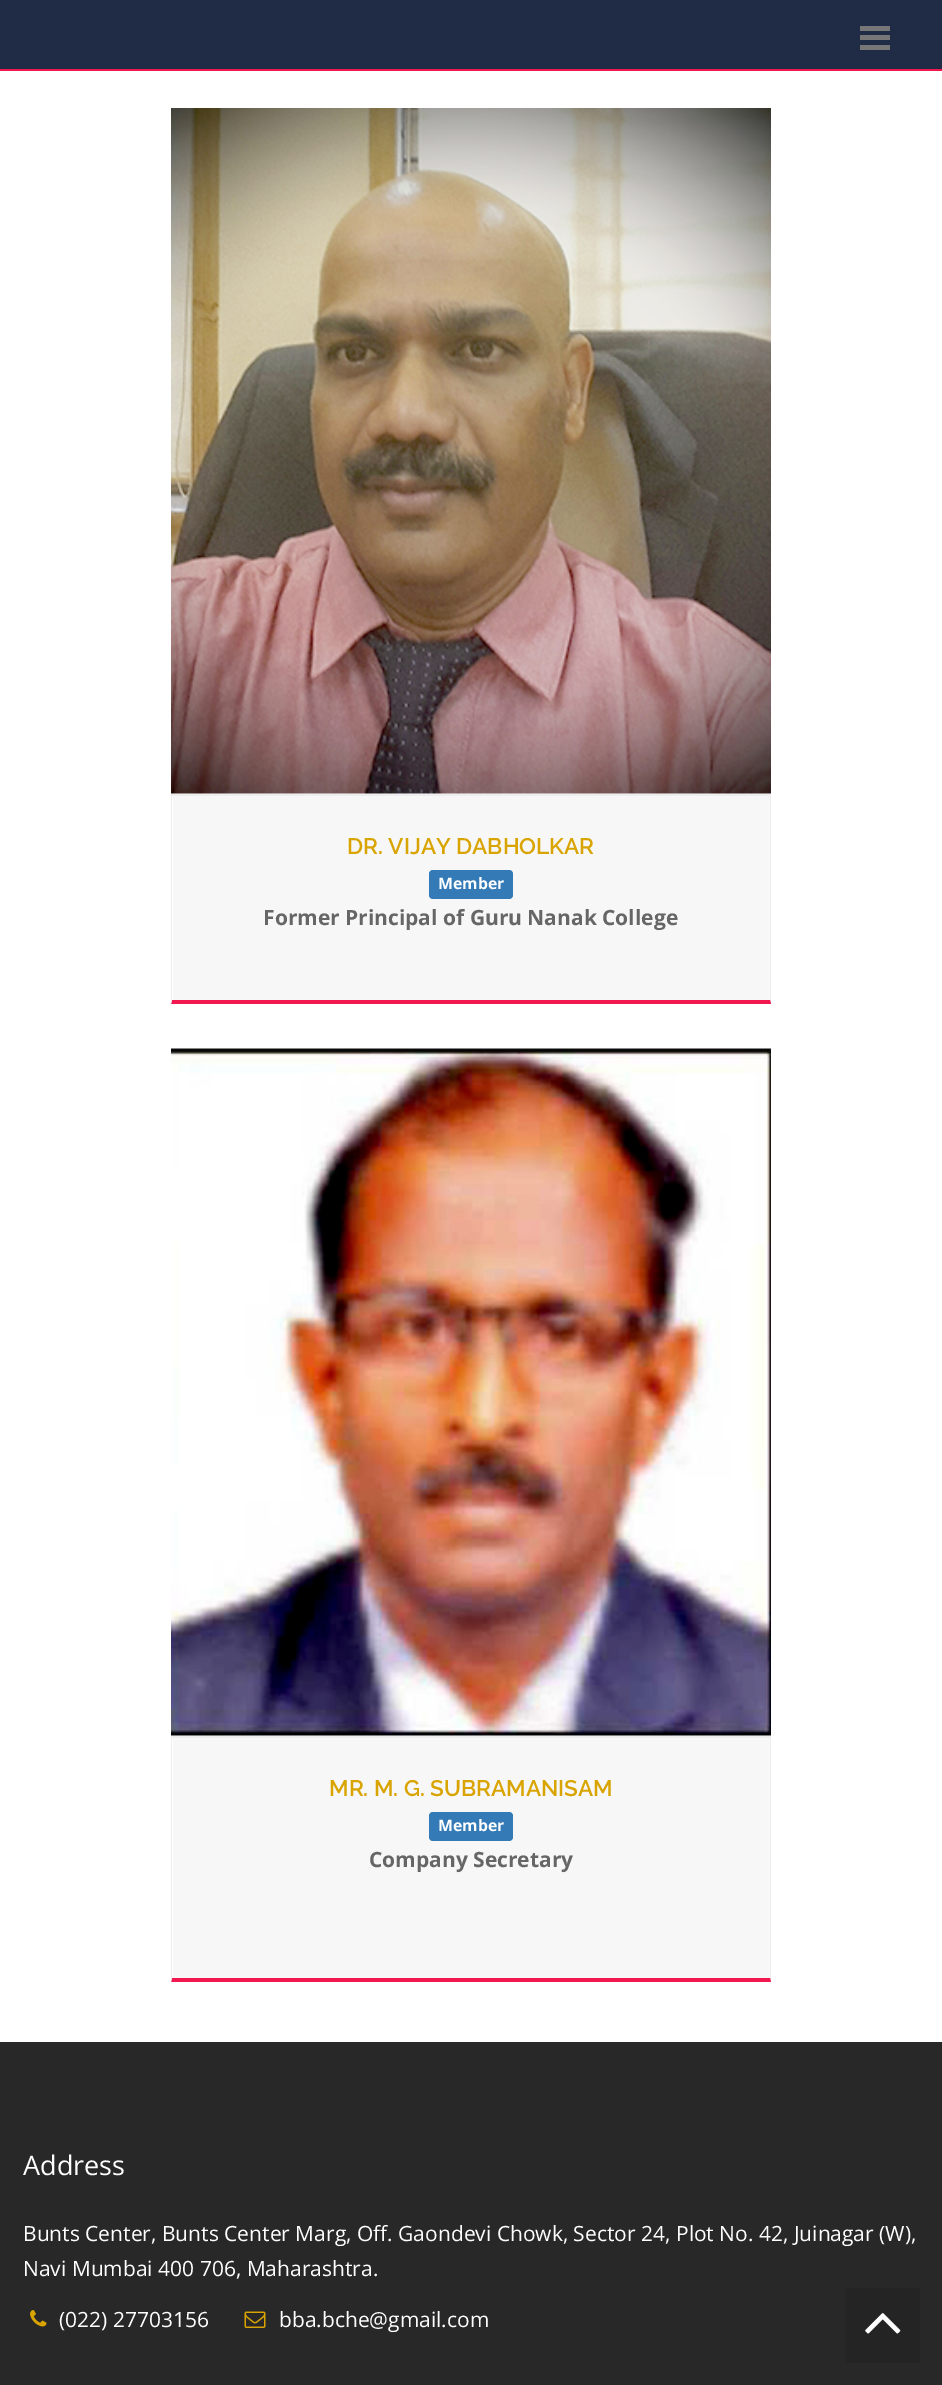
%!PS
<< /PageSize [942 2385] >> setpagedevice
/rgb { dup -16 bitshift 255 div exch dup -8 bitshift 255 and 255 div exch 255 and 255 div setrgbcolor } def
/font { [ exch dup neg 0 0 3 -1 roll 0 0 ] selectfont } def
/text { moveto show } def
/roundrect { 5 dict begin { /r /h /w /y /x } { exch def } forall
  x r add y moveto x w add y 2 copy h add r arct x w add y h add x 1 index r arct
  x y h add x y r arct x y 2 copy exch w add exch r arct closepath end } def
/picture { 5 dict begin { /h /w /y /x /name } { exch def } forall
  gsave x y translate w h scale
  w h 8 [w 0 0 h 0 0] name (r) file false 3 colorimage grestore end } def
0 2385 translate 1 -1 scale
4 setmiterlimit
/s1 { /Raleway-SemiBold 22.5 font 16#D9A400 rgb } def
/s2 { /OpenSans-Bold 15.75 font 16#FFFFFF rgb } def
/s3 { /OpenSans-Bold 21 font 16#666666 rgb } def
/s4 { /OpenSans-Regular 27 font 16#FFFFFF rgb } def
/s5 { /OpenSans-Regular 21 font 16#FFFFFF rgb } def
16#FFFFFF rgb
0 0 942 2385 rectfill
16#202C45 rgb
0 0 942 69 rectfill
16#F2184F rgb
0 69 942 2 rectfill
16#777777 rgb
860 26 30 5 rectfill
860 35 30 5 rectfill
860 45 30 5 rectfill
(pic1.raw) 171 108 600 686 picture
16#F7F7F7 rgb
173 796 597 204 rectfill
16#EEEEEE rgb
171 794 600 2 rectfill
771 794 moveto 771 1004 lineto 770 1000 lineto 770 795 lineto closepath fill
16#F2184F rgb
771 1004 moveto 171 1004 lineto 172 1000 lineto 770 1000 lineto closepath fill
16#EEEEEE rgb
171 1004 moveto 171 794 lineto 172 795 lineto 172 1000 lineto closepath fill
s1
(DR. VIJAY DABHOLKAR) 347 854 text
16#337AB7 rgb
429 870 84 29 4 roundrect fill
s2
(Member) 438 889 text
s3
(Former Principal of Guru Nanak College) 263 925 text
(pic2.raw) 171 1048 600 688 picture
16#F7F7F7 rgb
173 1738 597 240 rectfill
16#EEEEEE rgb
171 1736 600 2 rectfill
771 1736 moveto 771 1982 lineto 770 1978 lineto 770 1737 lineto closepath fill
16#F2184F rgb
771 1982 moveto 171 1982 lineto 172 1978 lineto 770 1978 lineto closepath fill
16#EEEEEE rgb
171 1982 moveto 171 1736 lineto 172 1737 lineto 172 1978 lineto closepath fill
s1
(MR. M. G. SUBRAMANISAM) 329 1796 text
16#337AB7 rgb
429 1812 84 29 4 roundrect fill
s2
(Member) 438 1831 text
s3
(Company Secretary) 369 1867 text
16#282828 rgb
0 2042 942 343 rectfill
s4
(Address) 23 2175 text
s5
(Bunts Center, Bunts Center Marg, Off. Gaondevi Chowk, Sector 24, Plot No. 42, Juinagar \(W\),) 23 2241 text
(Navi Mumbai 400 706, Maharashtra.) 23 2276 text
(pic3.raw) 30 2310 17 17 picture
(\(022\) 27703156) 59 2327 text
(pic4.raw) 244 2311 22 17 picture
(bba.bche@gmail.com) 279 2327 text
16#242424 rgb
845 2288 75 75 rectfill
(pic5.raw) 865 2313 36 21 picture
showpage
